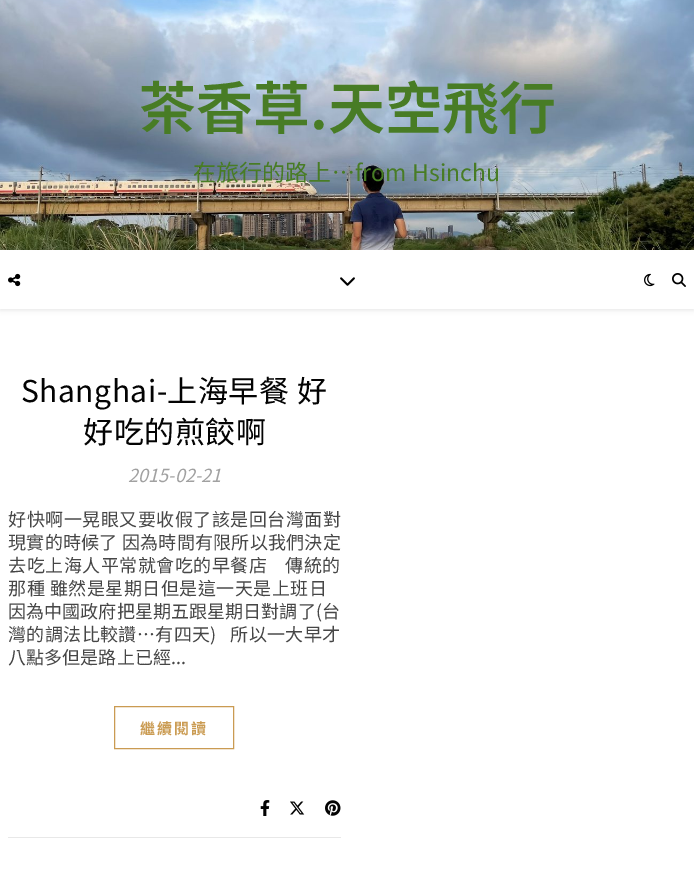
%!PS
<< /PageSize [694 886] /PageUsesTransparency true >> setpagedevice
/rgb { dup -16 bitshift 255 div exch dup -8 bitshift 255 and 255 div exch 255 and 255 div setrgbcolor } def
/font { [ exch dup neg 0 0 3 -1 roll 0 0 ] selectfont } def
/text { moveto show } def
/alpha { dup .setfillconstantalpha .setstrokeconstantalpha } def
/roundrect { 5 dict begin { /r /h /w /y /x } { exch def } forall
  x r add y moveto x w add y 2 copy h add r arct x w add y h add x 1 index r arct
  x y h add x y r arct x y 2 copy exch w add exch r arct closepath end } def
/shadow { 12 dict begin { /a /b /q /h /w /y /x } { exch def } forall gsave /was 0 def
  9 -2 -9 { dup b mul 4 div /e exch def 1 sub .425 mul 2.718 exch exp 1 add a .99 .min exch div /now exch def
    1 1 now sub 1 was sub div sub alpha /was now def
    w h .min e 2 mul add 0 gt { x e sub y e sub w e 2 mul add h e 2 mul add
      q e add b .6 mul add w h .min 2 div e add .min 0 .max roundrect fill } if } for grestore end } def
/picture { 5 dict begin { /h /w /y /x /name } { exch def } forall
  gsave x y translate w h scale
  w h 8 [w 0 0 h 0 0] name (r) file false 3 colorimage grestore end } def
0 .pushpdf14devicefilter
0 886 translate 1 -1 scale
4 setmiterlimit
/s1 { /NotoSansTC-SemiBold 57 font 16#487C25 rgb } def
16#FFFFFF rgb
0 0 694 886 rectfill
(pic1.raw) 0 0 694 250 picture
s1
(茶香草.天空飛行) 139 129 text
/NotoSansTC-Regular 23 font
193 181 moveto 0.1 0 (在旅行的路上…from Hsinchu) ashow
16#000000 rgb
0 251 694 59 0 2.5 0.1 shadow
16#FFFFFF rgb
0 250 694 59 rectfill
(pic2.raw) 8 273 13 14 picture
(pic3.raw) 340 277 15 9 picture
(pic4.raw) 644 273 11 14 picture
(pic5.raw) 672 273 14 14 picture
/NotoSansTC-Regular 30 font
16#030303 rgb
21 402 moveto 0.5 0 (Shanghai-上海早餐 好) ashow
83 443 moveto 0.5 0 (好吃的煎餃啊) ashow
/NotoSansTC-Italic 18 font
16#A1A1A1 rgb
128 482 moveto 0.1 0 (2015-02-21) ashow
/NotoSansTC-Regular 18 font
16#464646 rgb
8 526 moveto 0.5 0 (好快啊一晃眼又要收假了該是回台灣面對) ashow
8 549 moveto 0.25 0 (現實的時候了 因為時間有限所以我們決定) ashow
8 572 moveto 0.5 0 (去吃上海人平常就會吃的早餐店    傳統的) ashow
8 595 moveto 0.5 0 (那種 雖然是星期日但是這一天是上班日) ashow
8 618 moveto 0.1 0 (因為中國政府把星期五跟星期日對調了\(台) ashow
8 641 moveto 0.4 0 (灣的調法比較讚…有四天\)   所以一大早才) ashow
8 664 moveto 0.1 0 (八點多但是路上已經...) ashow
16#CA9B52 rgb
114.5 706.5 119 42 rectstroke
/NotoSansTC-Bold 15 font
140 734 moveto 2 0 (繼續閱讀) ashow
16#E8E8E8 rgb
8 837 333 1 rectfill
(pic6.raw) 260 800 10 16 picture
(pic7.raw) 290 801 15 14 picture
(pic8.raw) 325 800 16 16 picture
.poppdf14devicefilter showpage
